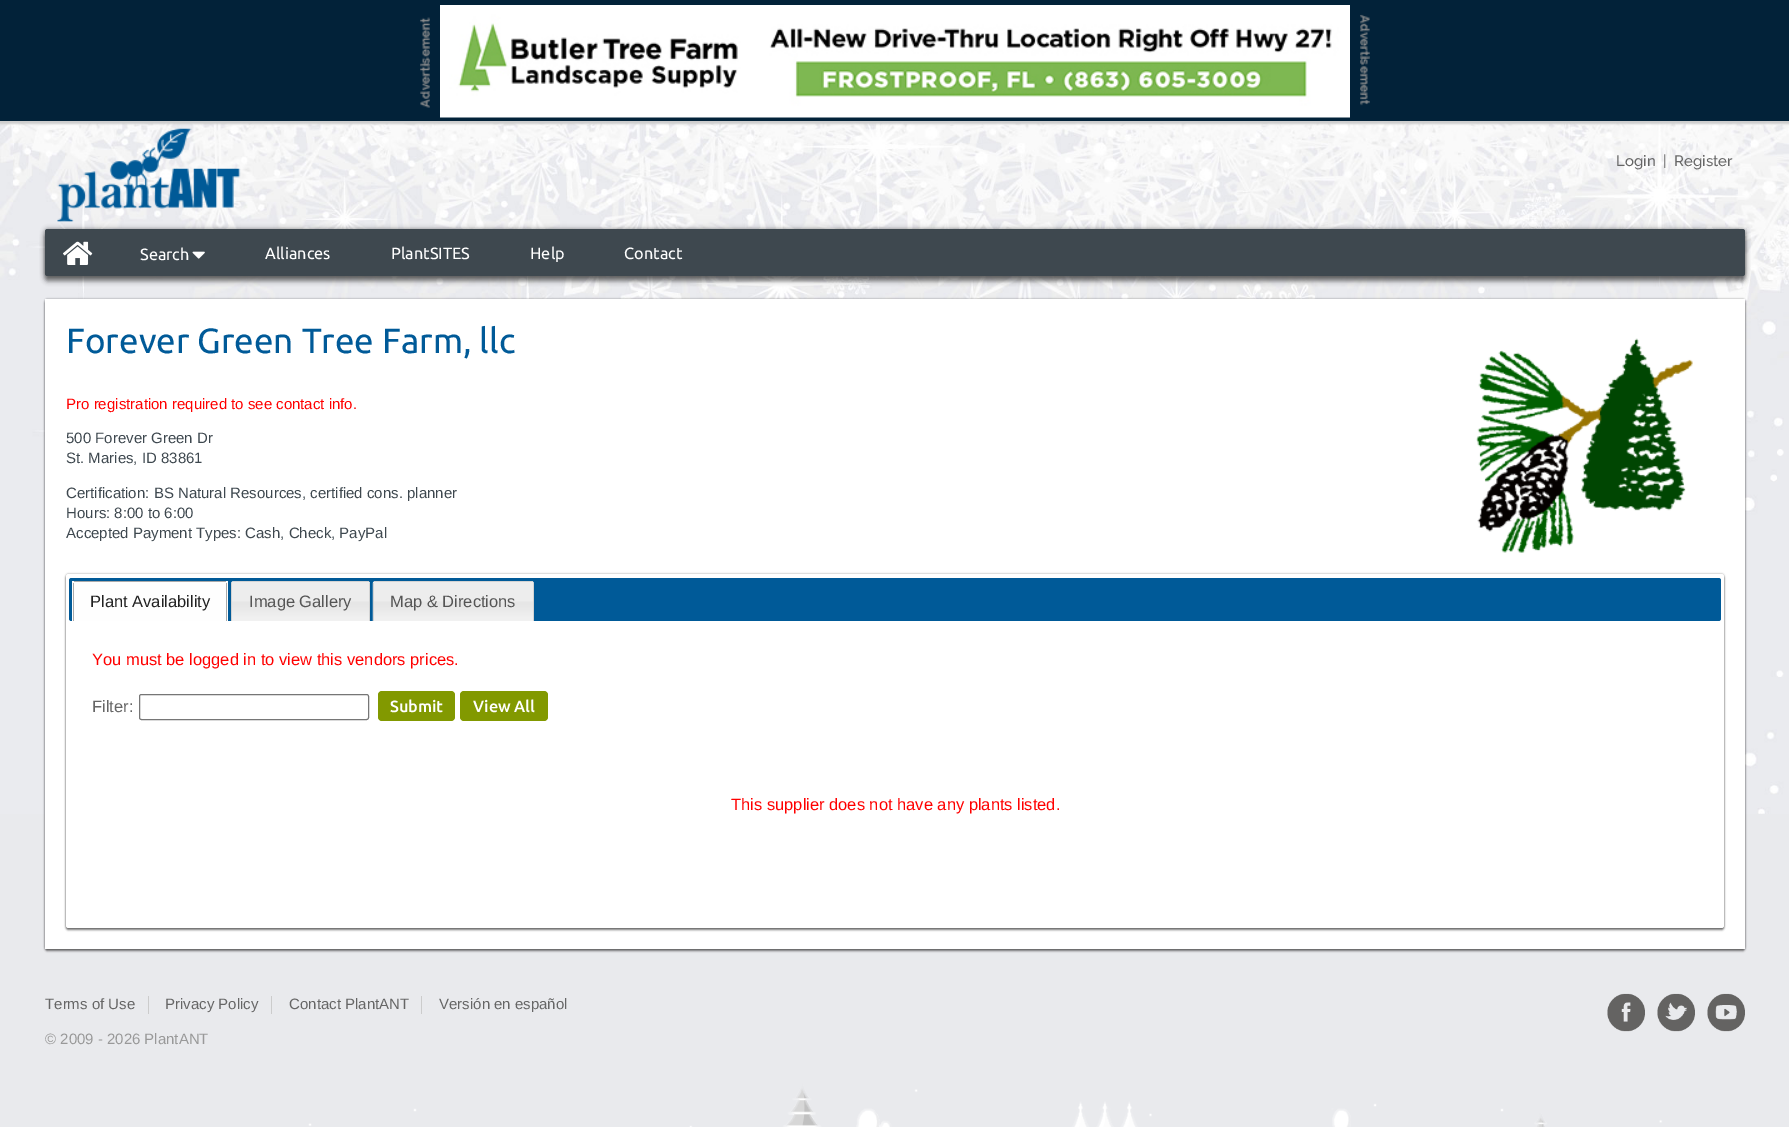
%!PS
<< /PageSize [1789 1127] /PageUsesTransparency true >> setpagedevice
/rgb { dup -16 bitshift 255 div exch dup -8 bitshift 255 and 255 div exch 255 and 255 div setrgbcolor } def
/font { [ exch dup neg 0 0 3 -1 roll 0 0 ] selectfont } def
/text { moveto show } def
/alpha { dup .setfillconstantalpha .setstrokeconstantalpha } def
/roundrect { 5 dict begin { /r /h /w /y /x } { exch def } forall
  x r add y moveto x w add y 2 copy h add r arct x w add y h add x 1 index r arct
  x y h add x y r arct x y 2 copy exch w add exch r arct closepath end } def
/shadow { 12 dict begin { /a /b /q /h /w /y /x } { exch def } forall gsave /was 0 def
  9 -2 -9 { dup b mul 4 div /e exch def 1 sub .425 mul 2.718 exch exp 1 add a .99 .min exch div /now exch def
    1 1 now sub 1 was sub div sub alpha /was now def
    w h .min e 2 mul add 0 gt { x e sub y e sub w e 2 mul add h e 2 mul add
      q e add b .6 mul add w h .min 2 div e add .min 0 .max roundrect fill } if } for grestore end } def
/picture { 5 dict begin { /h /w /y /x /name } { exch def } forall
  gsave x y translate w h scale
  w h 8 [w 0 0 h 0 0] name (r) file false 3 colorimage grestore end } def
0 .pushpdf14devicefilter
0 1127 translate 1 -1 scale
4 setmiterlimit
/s1 { /Raleway-Medium 15 font 16#666666 rgb } def
/s2 { /Ubuntu-Regular 16.25 font 16#FFFFFF rgb } def
/s3 { /Ubuntu-Regular 35 font 16#005A98 rgb } def
/s4 { /LiberationSans-Regular 15 font 16#FF0000 rgb } def
/s5 { /LiberationSans-Regular 15 font 16#3E484F rgb } def
/s6 { /LiberationSans-Regular 16.5 font 16#212121 rgb } def
/s7 { /LiberationSans-Regular 16.5 font 16#555555 rgb } def
/s8 { /LiberationSans-Regular 16.5 font 16#FF0000 rgb } def
/s9 { /LiberationSans-Regular 16.5 font 16#666666 rgb } def
/s10 { /Ubuntu-Medium 16.25 font 16#FFFFFF rgb } def
/s11 { /LiberationSans-Regular 15 font 16#666666 rgb } def
/s12 { /LiberationSans-Regular 15 font 16#999999 rgb } def
16#E9EAED rgb
0 0 1789 1127 rectfill
(pic1.raw) 0 121 1789 1006 picture
16#CCCCCC rgb
-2 -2 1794 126 0 1 1 shadow
16#022239 rgb
0 0 1789 121 rectfill
(pic2.raw) 420 17 10 91 picture
(pic3.raw) 440 5 910 113 picture
(pic4.raw) 1360 14 10 92 picture
(pic5.raw) 57 128 184 94 picture
s1
(Login) 1616 166 text
(|) 1663 166 text
(Register) 1674 166 text
16#000000 rgb
45 234 1700 47 2.5 2.5 0.5 shadow
45 229 1700 47 2.5 2.5 0.4 shadow
16#3E484F rgb
45 229 1700 47 2.5 roundrect fill
(pic6.raw) 63 241 30 24 picture
s2
(Search) 140 260 text
(pic7.raw) 192 251 13 8 picture
(Alliances) 265 259 text
(PlantSITES) 391 259 text
(Help) 530 259 text
(Contact) 624 259 text
16#000000 rgb
45 301 1700 650 2.5 1 0.5 shadow
45 299 1700 650 2.5 1 0.4 shadow
16#FFFFFF rgb
45 299 1700 650 rectfill
s3
(Forever Green Tree Farm, llc) 66 353 text
s4
(Pro registration required to see contact info.) 66 409 text
s5
(500 Forever Green Dr) 66 443 text
(St. Maries, ID 83861) 66 463 text
(Certification: BS Natural Resources, certified cons. planner) 66 498 text
(Hours: 8:00 to 6:00) 66 518 text
(Accepted Payment Types: Cash, Check, PayPal) 66 538 text
(pic8.raw) 1476 338 217 215 picture
16#000000 rgb
66 576 1658 354 2.5 1 0.5 shadow
66 574 1658 354 2.5 1 0.4 shadow
16#FFFFFF rgb
66 574 1658 354 2.5 roundrect fill
16#005A98 rgb
69 578 1652 43 2.5 roundrect fill
16#FEFEFE rgb
72 581 156 40 rectfill
16#AAAAAA rgb
74 581 152 1 rectfill
226 583 1 38 rectfill
73 583 1 38 rectfill
s6
(Plant Availability) 90 607 text
16#E6E6E6 rgb
233.5 581 moveto 367.5 581 lineto 369 581 370 582 370 583.5 curveto 370 621 lineto 231 621 lineto 231 583.5 lineto 231 582 232 581 233.5 581 curveto closepath fill
(pic9.raw) 231 581 139 40 picture
16#D3D3D3 rgb
233 581 136 1 rectfill
369 583 1 38 rectfill
231 583 1 38 rectfill
s7
(Image Gallery) 249 607 text
16#E6E6E6 rgb
375.5 581 moveto 531.5 581 lineto 533 581 534 582 534 583.5 curveto 534 621 lineto 373 621 lineto 373 583.5 lineto 373 582 374 581 375.5 581 curveto closepath fill
(pic10.raw) 372 581 162 40 picture
16#D3D3D3 rgb
374 581 159 1 rectfill
533 583 1 38 rectfill
373 583 1 38 rectfill
s7
(Map & Directions) 390 607 text
s8
(You must be logged in to view this vendors prices.) 92 665 text
s9
(Filter:) 92 712 text
16#767676 rgb
139.5 694.5 229 25 2 roundrect stroke
16#829900 rgb
378 691 77 30 4 roundrect fill
s10
(Submit) 390 712 text
16#829900 rgb
460 691 88 30 4 roundrect fill
s10
(View All) 473 712 text
s8
(This supplier does not have any plants listed.) 731 810 text
s11
(Terms of Use) 45 1009 text
16#CCCCCC rgb
148 996 1 18 rectfill
s11
(Privacy Policy) 165 1009 text
16#CCCCCC rgb
271 996 1 18 rectfill
s11
(Contact PlantANT) 289 1009 text
16#CCCCCC rgb
421 996 1 18 rectfill
s11
(Versión en español) 439 1009 text
s12
(© 2009 - 2026 PlantANT) 45 1044 text
(pic11.raw) 1607 993 38 39 picture
(pic12.raw) 1657 993 38 39 picture
(pic13.raw) 1707 993 38 39 picture
.poppdf14devicefilter showpage
